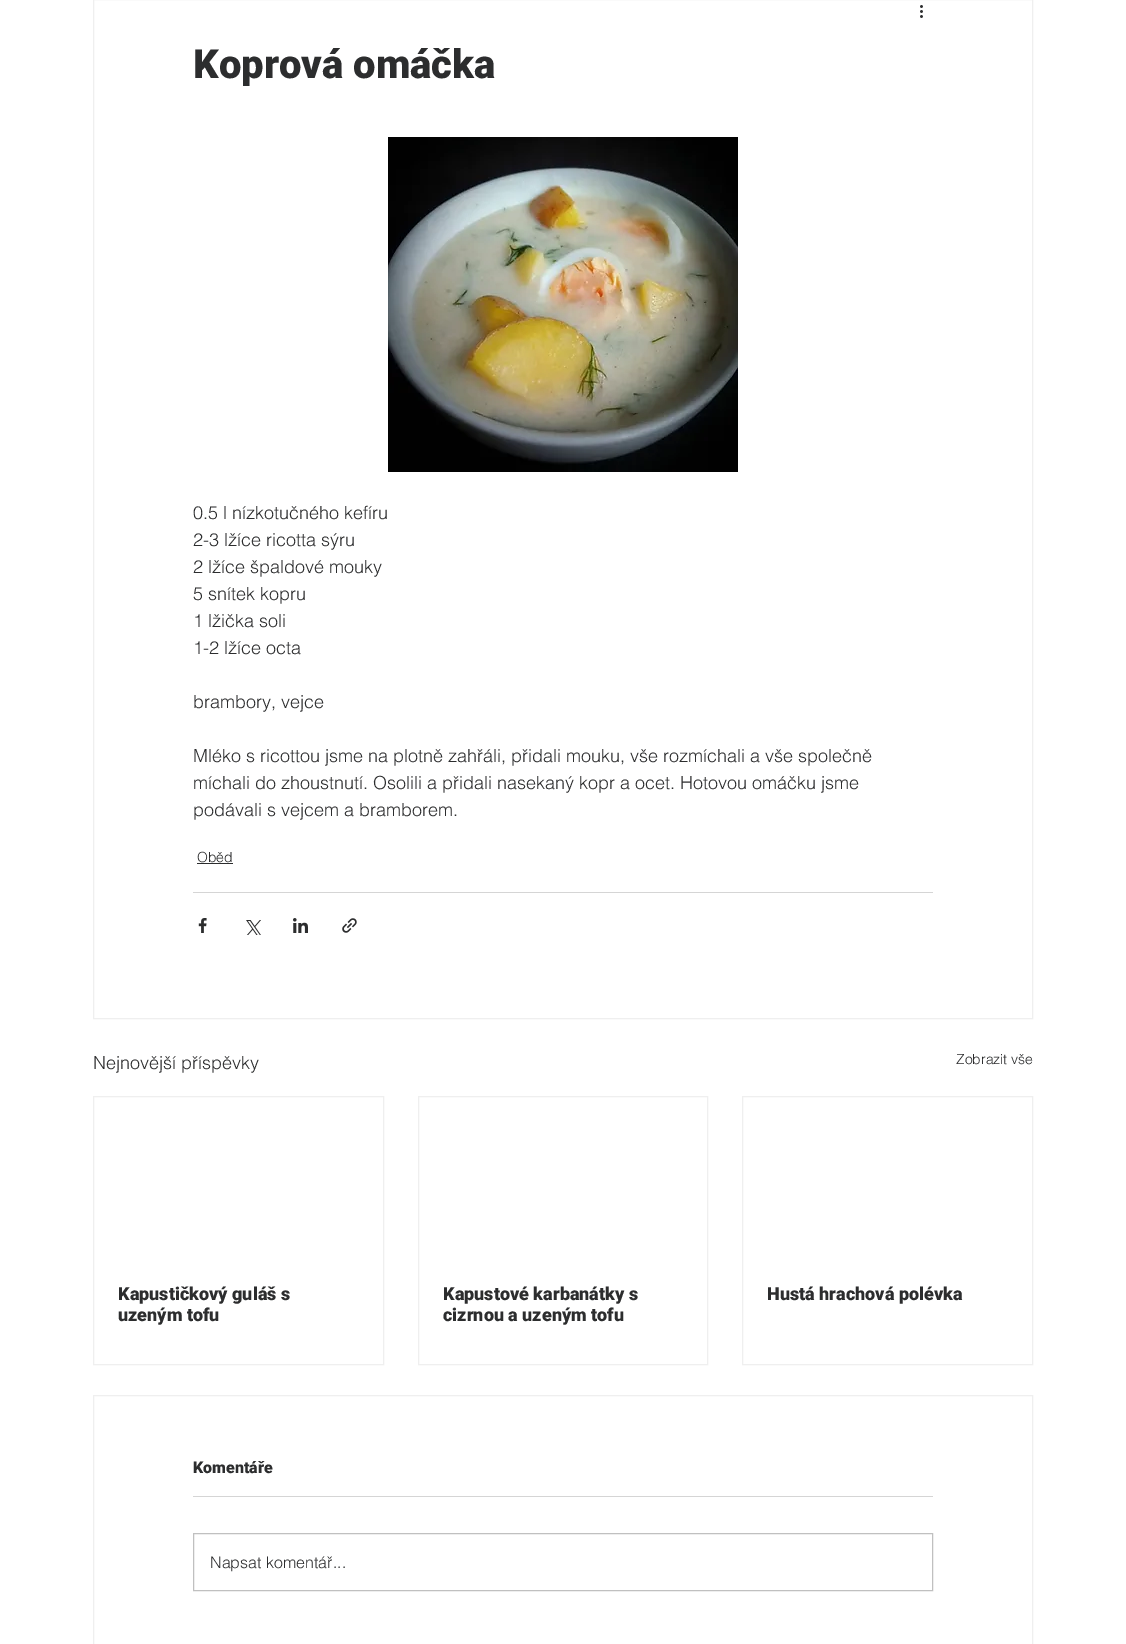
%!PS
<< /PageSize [1126 1644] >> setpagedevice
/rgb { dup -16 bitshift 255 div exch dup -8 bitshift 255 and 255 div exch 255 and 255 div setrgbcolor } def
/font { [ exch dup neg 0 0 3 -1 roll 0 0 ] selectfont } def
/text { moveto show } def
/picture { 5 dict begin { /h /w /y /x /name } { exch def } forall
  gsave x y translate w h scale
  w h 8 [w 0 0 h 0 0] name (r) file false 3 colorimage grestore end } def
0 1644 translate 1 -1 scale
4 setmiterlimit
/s1 { /Roboto-Black 40 font 16#2C2D2E rgb } def
/s2 { /helvetica-Light 18 font 16#2C2D2E rgb } def
/s3 { /helvetica-Light 14 font 16#2C2D2E rgb } def
/s4 { /Roboto-Black 18 font 16#2C2D2E rgb } def
/s5 { /Roboto-Black 16 font 16#2C2D2E rgb } def
/s6 { /helvetica-Light 16 font 16#2C2D2E rgb } def
16#FFFFFF rgb
0 0 1126 1644 rectfill
16#EFEFEF rgb
93.5 -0.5 939 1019 rectstroke
(pic1.raw) 920 5 3 13 picture
s1
(Koprová omáčka) 193 78 text
(pic2.raw) 388 137 350 335 picture
s2
(0.5 l nízkotučného kefíru) 193 519 text
(2-3 lžíce ricotta sýru) 193 546 text
(2 lžíce špaldové mouky) 193 573 text
(5 snítek kopru) 193 600 text
(1 lžička soli) 193 627 text
(1-2 lžíce octa) 193 654 text
(brambory, vejce) 193 708 text
(Mléko s ricottou jsme na plotně zahřáli, přidali mouku, vše rozmíchali a vše společně) 193 762 text
(míchali do zhoustnutí. Osolili a přidali nasekaný kopr a ocet. Hotovou omáčku jsme) 193 789 text
(podávali s vejcem a bramborem.) 193 816 text
s3
(Oběd) 197 862 text
197 863 36 1 rectfill
16#D5D5D5 rgb
193 892 740 1 rectfill
(pic3.raw) 198 918 9 15 picture
(pic4.raw) 246 920 15 15 picture
(pic5.raw) 293 918 15 15 picture
(pic6.raw) 342 918 15 15 picture
s2
(Nejnovější příspěvky) 93 1069 text
s3
(Zobrazit vše) 956 1064 text
16#EFEFEF rgb
93.5 1096.5 290 268 rectstroke
s4
(Kapustičkový guláš s) 118 1300 text
(uzeným tofu) 118 1321 text
16#EFEFEF rgb
418.5 1096.5 289 268 rectstroke
s4
(Kapustové karbanátky s) 443 1300 text
(cizrnou a uzeným tofu) 443 1321 text
16#EFEFEF rgb
742.5 1096.5 290 268 rectstroke
s4
(Hustá hrachová polévka) 767 1300 text
16#EFEFEF rgb
93.5 1395.5 939 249 rectstroke
s5
(Komentáře) 193 1473 text
16#D5D5D5 rgb
193 1496 740 1 rectfill
16#C0C0C0 rgb
193.5 1533.5 739 57 rectstroke
s6
(Napsat komentář...) 210 1568 text
showpage
